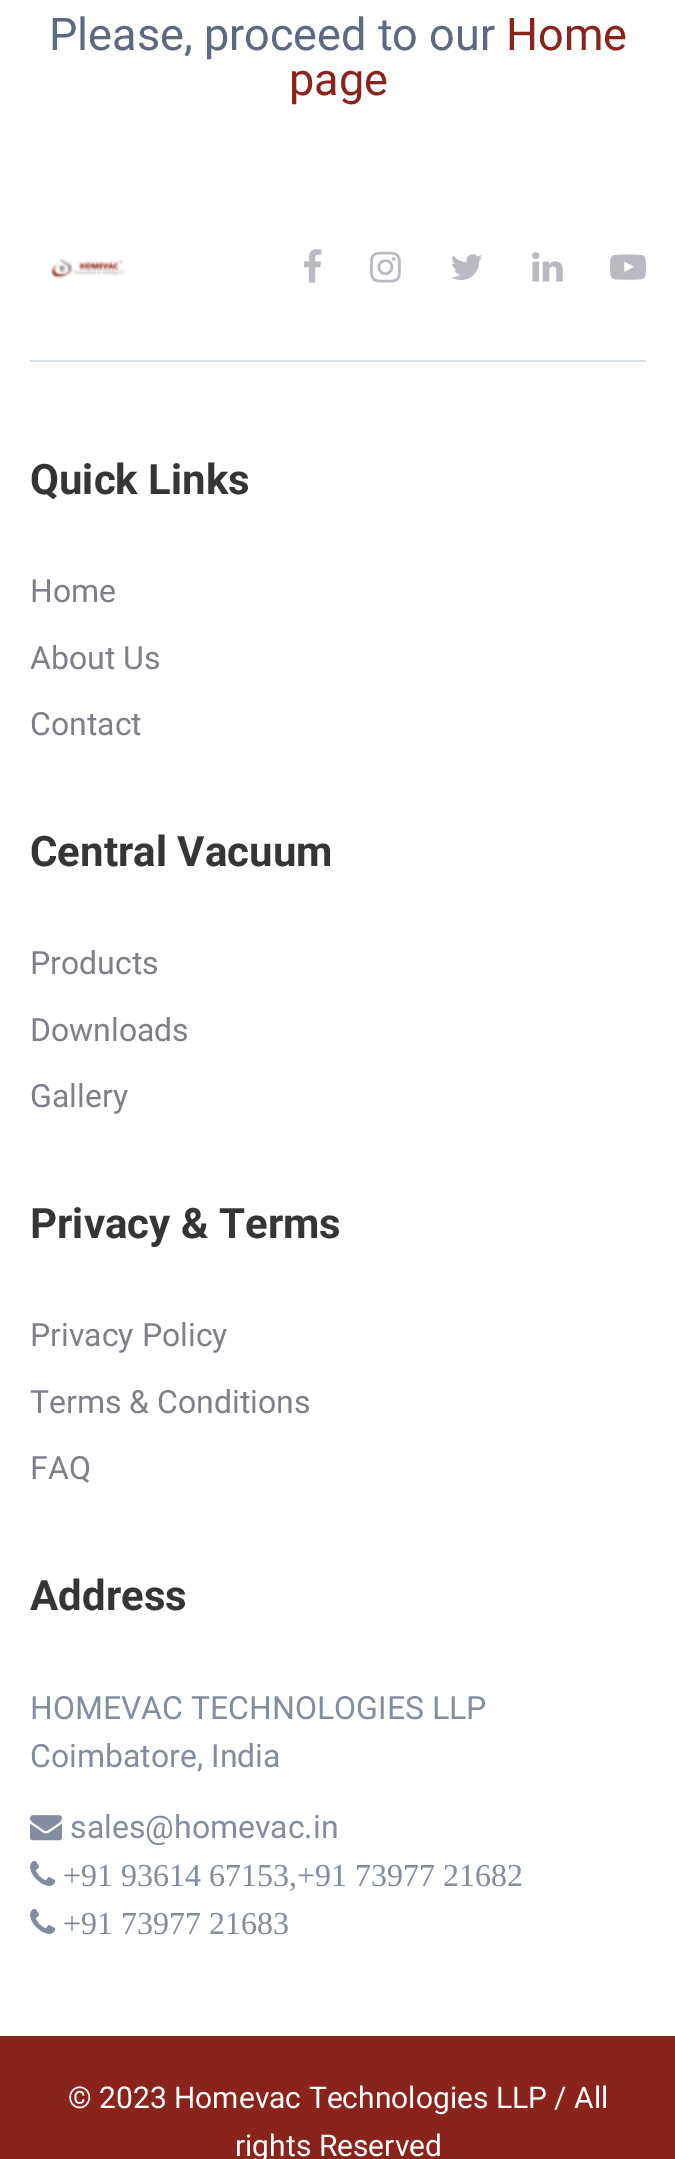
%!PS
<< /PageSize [675 2159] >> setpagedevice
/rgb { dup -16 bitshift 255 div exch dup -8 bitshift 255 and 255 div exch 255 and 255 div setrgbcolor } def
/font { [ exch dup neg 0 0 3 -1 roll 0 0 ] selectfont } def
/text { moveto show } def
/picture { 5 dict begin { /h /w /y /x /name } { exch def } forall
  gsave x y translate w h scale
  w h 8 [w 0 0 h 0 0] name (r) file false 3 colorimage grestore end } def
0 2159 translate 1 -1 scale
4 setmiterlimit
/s1 { /Roboto-Regular 45 font 16#5D6881 rgb } def
/s2 { /Roboto-Regular 45 font 16#8B231D rgb } def
/s3 { /Roboto-Bold 42 font 16#353535 rgb } def
/s4 { /Roboto-Regular 32 font 16#7F7F8A rgb } def
/s5 { /Roboto-Regular 32 font 16#838DA0 rgb } def
/s6 { /LiberationSerif-Regular 32 font 16#838DA0 rgb } def
/s7 { /Roboto-Regular 30 font 16#FFFFFF rgb } def
16#FFFFFF rgb
0 0 675 2159 rectfill
s1
(Please, proceed to our) 49 50 text
s2
(Home) 506 50 text
(page) 289 95 text
16#D3E0E4 rgb
30 360 616 2 rectfill
(pic1.raw) 50 258 75 21 picture
(pic2.raw) 303 249 19 34 picture
(pic3.raw) 370 251 31 32 picture
(pic4.raw) 451 254 32 26 picture
(pic5.raw) 532 252 31 30 picture
(pic6.raw) 610 254 36 26 picture
s3
(Quick Links) 30 494 text
s4
(Home) 30 602 text
(About Us) 30 669 text
(Contact) 30 735 text
s3
(Central Vacuum) 30 866 text
s4
(Products) 30 974 text
(Downloads) 30 1041 text
(Gallery) 30 1107 text
s3
(Privacy & Terms) 30 1238 text
s4
(Privacy Policy) 30 1346 text
(Terms & Conditions) 30 1413 text
(FAQ) 30 1479 text
s3
(Address) 30 1610 text
s5
(HOMEVAC TECHNOLOGIES LLP) 30 1719 text
(Coimbatore, India) 30 1767 text
(pic7.raw) 30 1815 32 26 picture
(sales@homevac.in) 70 1838 text
(pic8.raw) 30 1860 26 26 picture
s6
(+91 93614 67153,+91 73977 21682) 63 1886 text
(pic8.raw) 30 1908 26 26 picture
(+91 73977 21683) 63 1934 text
16#8B231D rgb
0 2036 675 123 rectfill
s7
(© 2023 Homevac Technologies LLP / All) 68 2108 text
(rights Reserved) 235 2156 text
showpage
